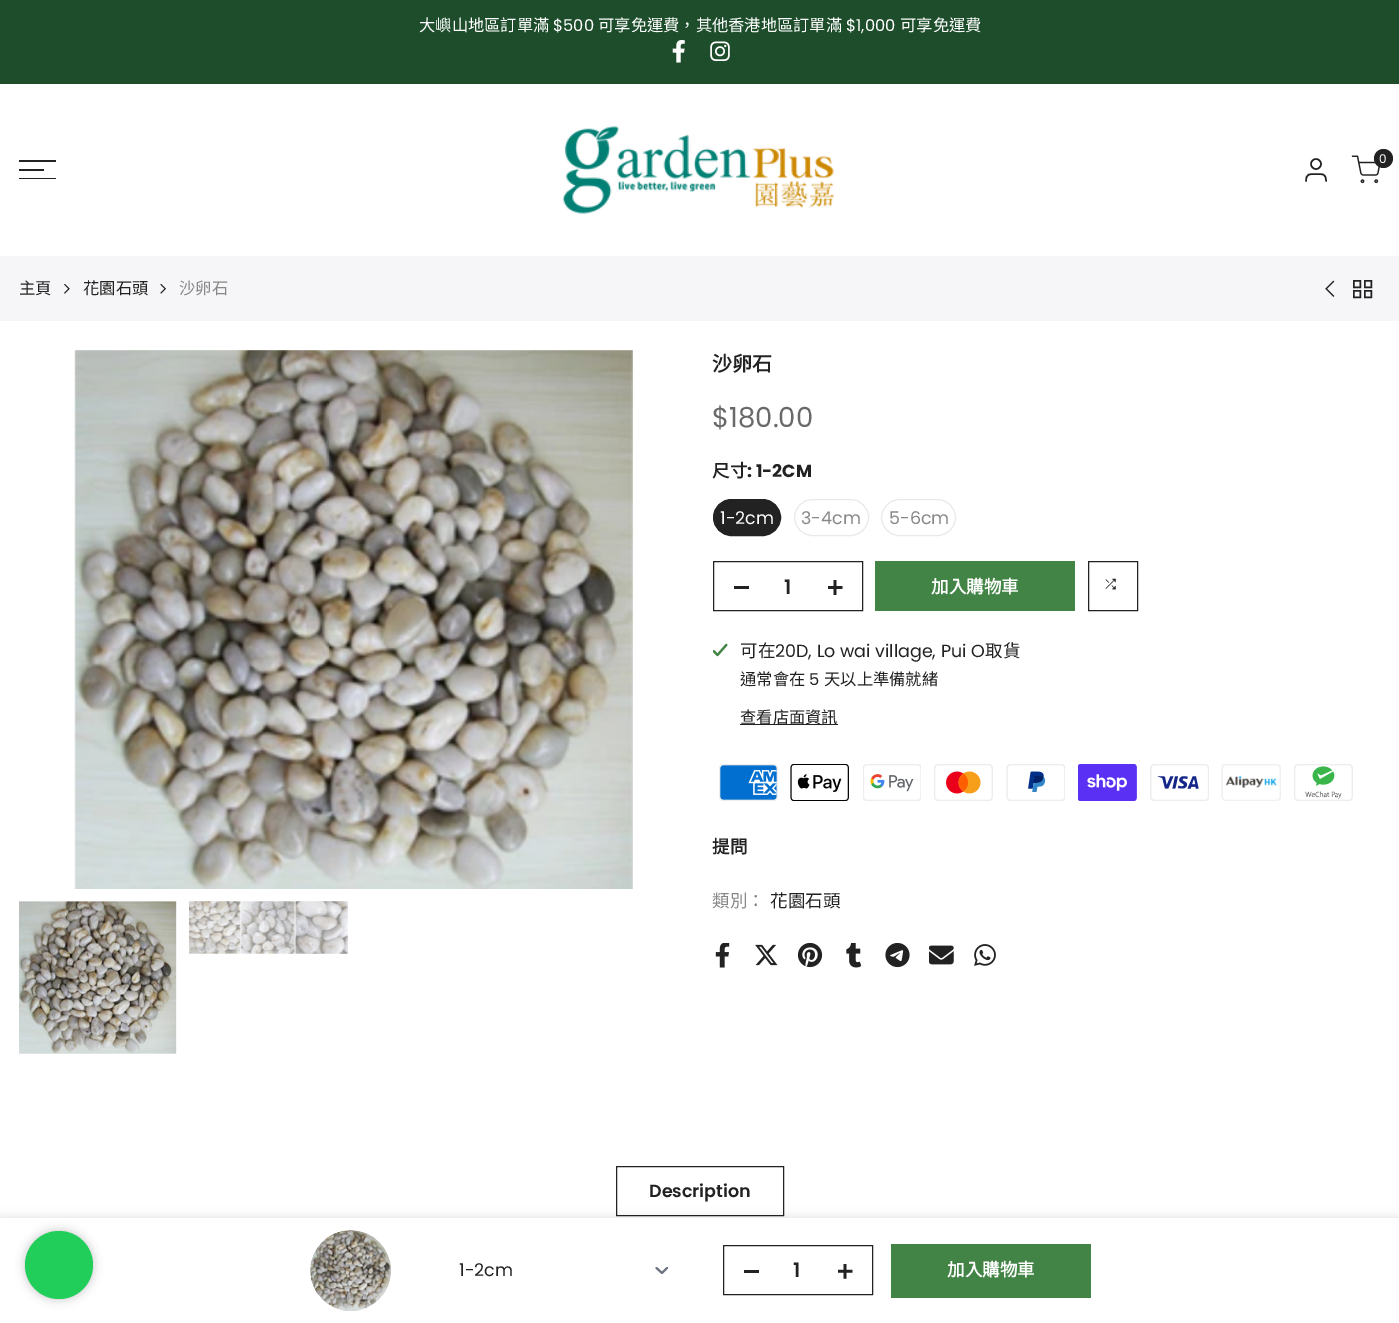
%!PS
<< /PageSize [1399 1323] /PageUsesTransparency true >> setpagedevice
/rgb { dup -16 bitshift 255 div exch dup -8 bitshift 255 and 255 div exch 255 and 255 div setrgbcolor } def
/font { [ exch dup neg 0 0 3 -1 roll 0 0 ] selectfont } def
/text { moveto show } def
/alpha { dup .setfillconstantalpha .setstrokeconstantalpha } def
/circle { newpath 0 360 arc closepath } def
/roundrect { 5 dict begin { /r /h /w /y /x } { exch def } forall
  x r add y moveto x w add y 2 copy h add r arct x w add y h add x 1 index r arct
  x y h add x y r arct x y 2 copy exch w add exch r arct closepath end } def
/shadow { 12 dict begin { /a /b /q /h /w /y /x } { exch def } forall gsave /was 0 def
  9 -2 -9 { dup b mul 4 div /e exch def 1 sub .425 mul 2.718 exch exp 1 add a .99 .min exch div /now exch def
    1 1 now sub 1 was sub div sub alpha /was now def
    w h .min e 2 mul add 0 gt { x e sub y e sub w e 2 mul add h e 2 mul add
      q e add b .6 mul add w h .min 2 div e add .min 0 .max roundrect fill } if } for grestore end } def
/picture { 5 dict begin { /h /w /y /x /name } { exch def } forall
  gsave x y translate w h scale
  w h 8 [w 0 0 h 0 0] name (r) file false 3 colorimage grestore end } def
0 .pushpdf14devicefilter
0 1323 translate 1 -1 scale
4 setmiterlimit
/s1 { /NotoSansCJKTC-Regular 16.25 font 16#FFFFFF rgb } def
/s2 { /Poppins-Regular 16.25 font 16#FFFFFF rgb } def
/s3 { /Poppins-Regular 12 font 16#FFFFFF rgb } def
/s4 { /NotoSansCJKTC-Regular 16.25 font 16#222222 rgb } def
/s5 { /NotoSansCJKTC-Regular 16.25 font 16#878787 rgb } def
/s6 { /NotoSansCJKTC-Bold 20 font 16#222222 rgb } def
/s7 { /Poppins-Regular 27.5 font 16#696969 rgb } def
/s8 { /NotoSansCJKTC-Bold 17.5 font 16#222222 rgb } def
/s9 { /Poppins-Bold 17.5 font 16#222222 rgb } def
/s10 { /Poppins-Regular 17.5 font 16#FFFFFF rgb } def
/s11 { /Poppins-Regular 17.5 font 16#878787 rgb } def
/s12 { /Poppins-SemiBold 20 font 16#222222 rgb } def
/s13 { /NotoSansCJKTC-Bold 17.5 font 16#FFFFFF rgb } def
/s14 { /NotoSansCJKTC-Regular 17.5 font 16#222222 rgb } def
/s15 { /Poppins-Regular 17.5 font 16#222222 rgb } def
/s16 { /Poppins-Regular 16.25 font 16#222222 rgb } def
/s17 { /NotoSansCJKTC-Regular 17.5 font 16#878787 rgb } def
/s18 { /Poppins-SemiBold 17.5 font 16#222222 rgb } def
16#FFFFFF rgb
0 0 1399 1323 rectfill
16#1E4D2B rgb
0 0 1399 84 rectfill
s1
(大嶼山地區訂單滿) 419 31 text
s2
($500) 553 31 text
s1
(可享免運費，其他香港地區訂單滿) 598 31 text
s2
($1,000) 846 31 text
s1
(可享免運費) 900 31 text
(pic1.raw) 672 40 13 23 picture
(pic2.raw) 710 41 20 20 picture
(pic3.raw) 562 126 272 88 picture
16#222222 rgb
1.5 setlinewidth
1 setlinecap
1 setlinejoin
1326 181 moveto 1326 173.5 1323 174 1316 174 curveto 1309.5 174 1306 173.5 1306 181 curveto stroke
0 setlinecap
0 setlinejoin
1316 164 5 circle stroke
(pic4.raw) 1351 155 29 29 picture
1383.5 158.5 9.5 circle fill
s3
(0) 1379 163 text
16#222222 rgb
19 160 37 2 rectfill
19 169 25 2 rectfill
19 178 37 1 rectfill
16#F6F6F8 rgb
0 256 1399 65 rectfill
s4
(主頁) 19 294 text
(pic5.raw) 64 284 6 10 picture
(花園石頭) 83 294 text
(pic6.raw) 160 284 6 10 picture
s5
(沙卵石) 179 294 text
(pic7.raw) 1325 280 10 17 picture
16#222222 rgb
1353.75 280.75 6.5 6.5 rectstroke
1364.75 280.75 6.5 6.5 rectstroke
1364.75 290.75 6.5 6.5 rectstroke
1353.75 290.75 6.5 6.5 rectstroke
(pic8.raw) 74 350 559 539 picture
(pic9.raw) 19 901 158 153 picture
(pic10.raw) 189 901 159 53 picture
s6
(沙卵石) 712 371 text
s7
($180.00) 712 427 text
s8
(尺寸) 712 477 text
s9
(: 1-2CM) 747 477 text
713.5 499.5 67 36 18 roundrect gsave fill grestore
1 setlinewidth
stroke
s10
(1-2cm) 720 524 text
16#E9E9E9 rgb
794.5 499.5 74 36 18 roundrect stroke
s11
(3-4cm) 801 524 text
16#E9E9E9 rgb
881.5 499.5 74 36 18 roundrect stroke
s11
(5-6cm) 889 524 text
16#222222 rgb
713.5 561.5 149 49 rectstroke
734 586 15 3 rectfill
s12
(1) 784 594 text
(pic11.raw) 828 580 15 15 picture
16#428445 rgb
875 561 200 50 rectfill
s13
(加入購物車) 931 593 text
16#222222 rgb
1088.5 561.5 49 49 rectstroke
(pic12.raw) 1105 578 11 12 picture
(pic13.raw) 713 643 15 14 picture
s14
(可在) 740 657 text
s15
(20D, Lo wai village, Pui O) 775 657 text
s14
(取貨) 985 657 text
s4
(通常會在) 740 685 text
s16
(5) 809 685 text
s4
(天以上準備就緒) 824 685 text
740 724 98 1 rectfill
(查看店面資訊) 740 723 text
(pic14.raw) 719 764 59 37 picture
(pic15.raw) 790 764 59 37 picture
(pic16.raw) 863 764 58 37 picture
(pic17.raw) 934 764 59 37 picture
(pic18.raw) 1006 764 59 37 picture
(pic19.raw) 1078 764 59 37 picture
(pic20.raw) 1150 764 59 37 picture
(pic21.raw) 1221 764 60 37 picture
(pic22.raw) 1294 764 59 37 picture
s8
(提問) 712 853 text
s17
(類別：) 712 907 text
s14
(花園石頭) 770 907 text
(pic23.raw) 715 943 15 25 picture
(pic24.raw) 755 944 23 22 picture
(pic25.raw) 798 943 25 25 picture
(pic26.raw) 846 943 16 25 picture
(pic27.raw) 885 943 25 25 picture
(pic28.raw) 929 945 25 20 picture
(pic29.raw) 974 944 22 22 picture
616.5 1166.5 167 49 rectstroke
16#000000 rgb
0 1218 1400 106 0 5.5 0.12 shadow
16#FFFFFF rgb
0 1218 1399 105 rectfill
(pic30.raw) 310 1230 81 81 picture
16#6B7280 rgb
2 setlinewidth
1 setlinecap
1 setlinejoin
656.5 1268 moveto 662 1273 lineto 667 1268 lineto stroke
s15
(1-2cm) 459 1276 text
1 setlinewidth
0 setlinecap
0 setlinejoin
723.5 1245.5 149 49 rectstroke
744 1270 15 3 rectfill
s12
(1) 793 1277 text
(pic31.raw) 838 1264 15 15 picture
16#428445 rgb
891 1244 200 54 rectfill
s13
(加入購物車) 947 1276 text
s18
(Description) 649 1197 text
16#C2C2C2 rgb
25 1231 68 68 34 5 1 shadow
16#22CE5A rgb
59 1265 34 circle fill
.poppdf14devicefilter showpage
